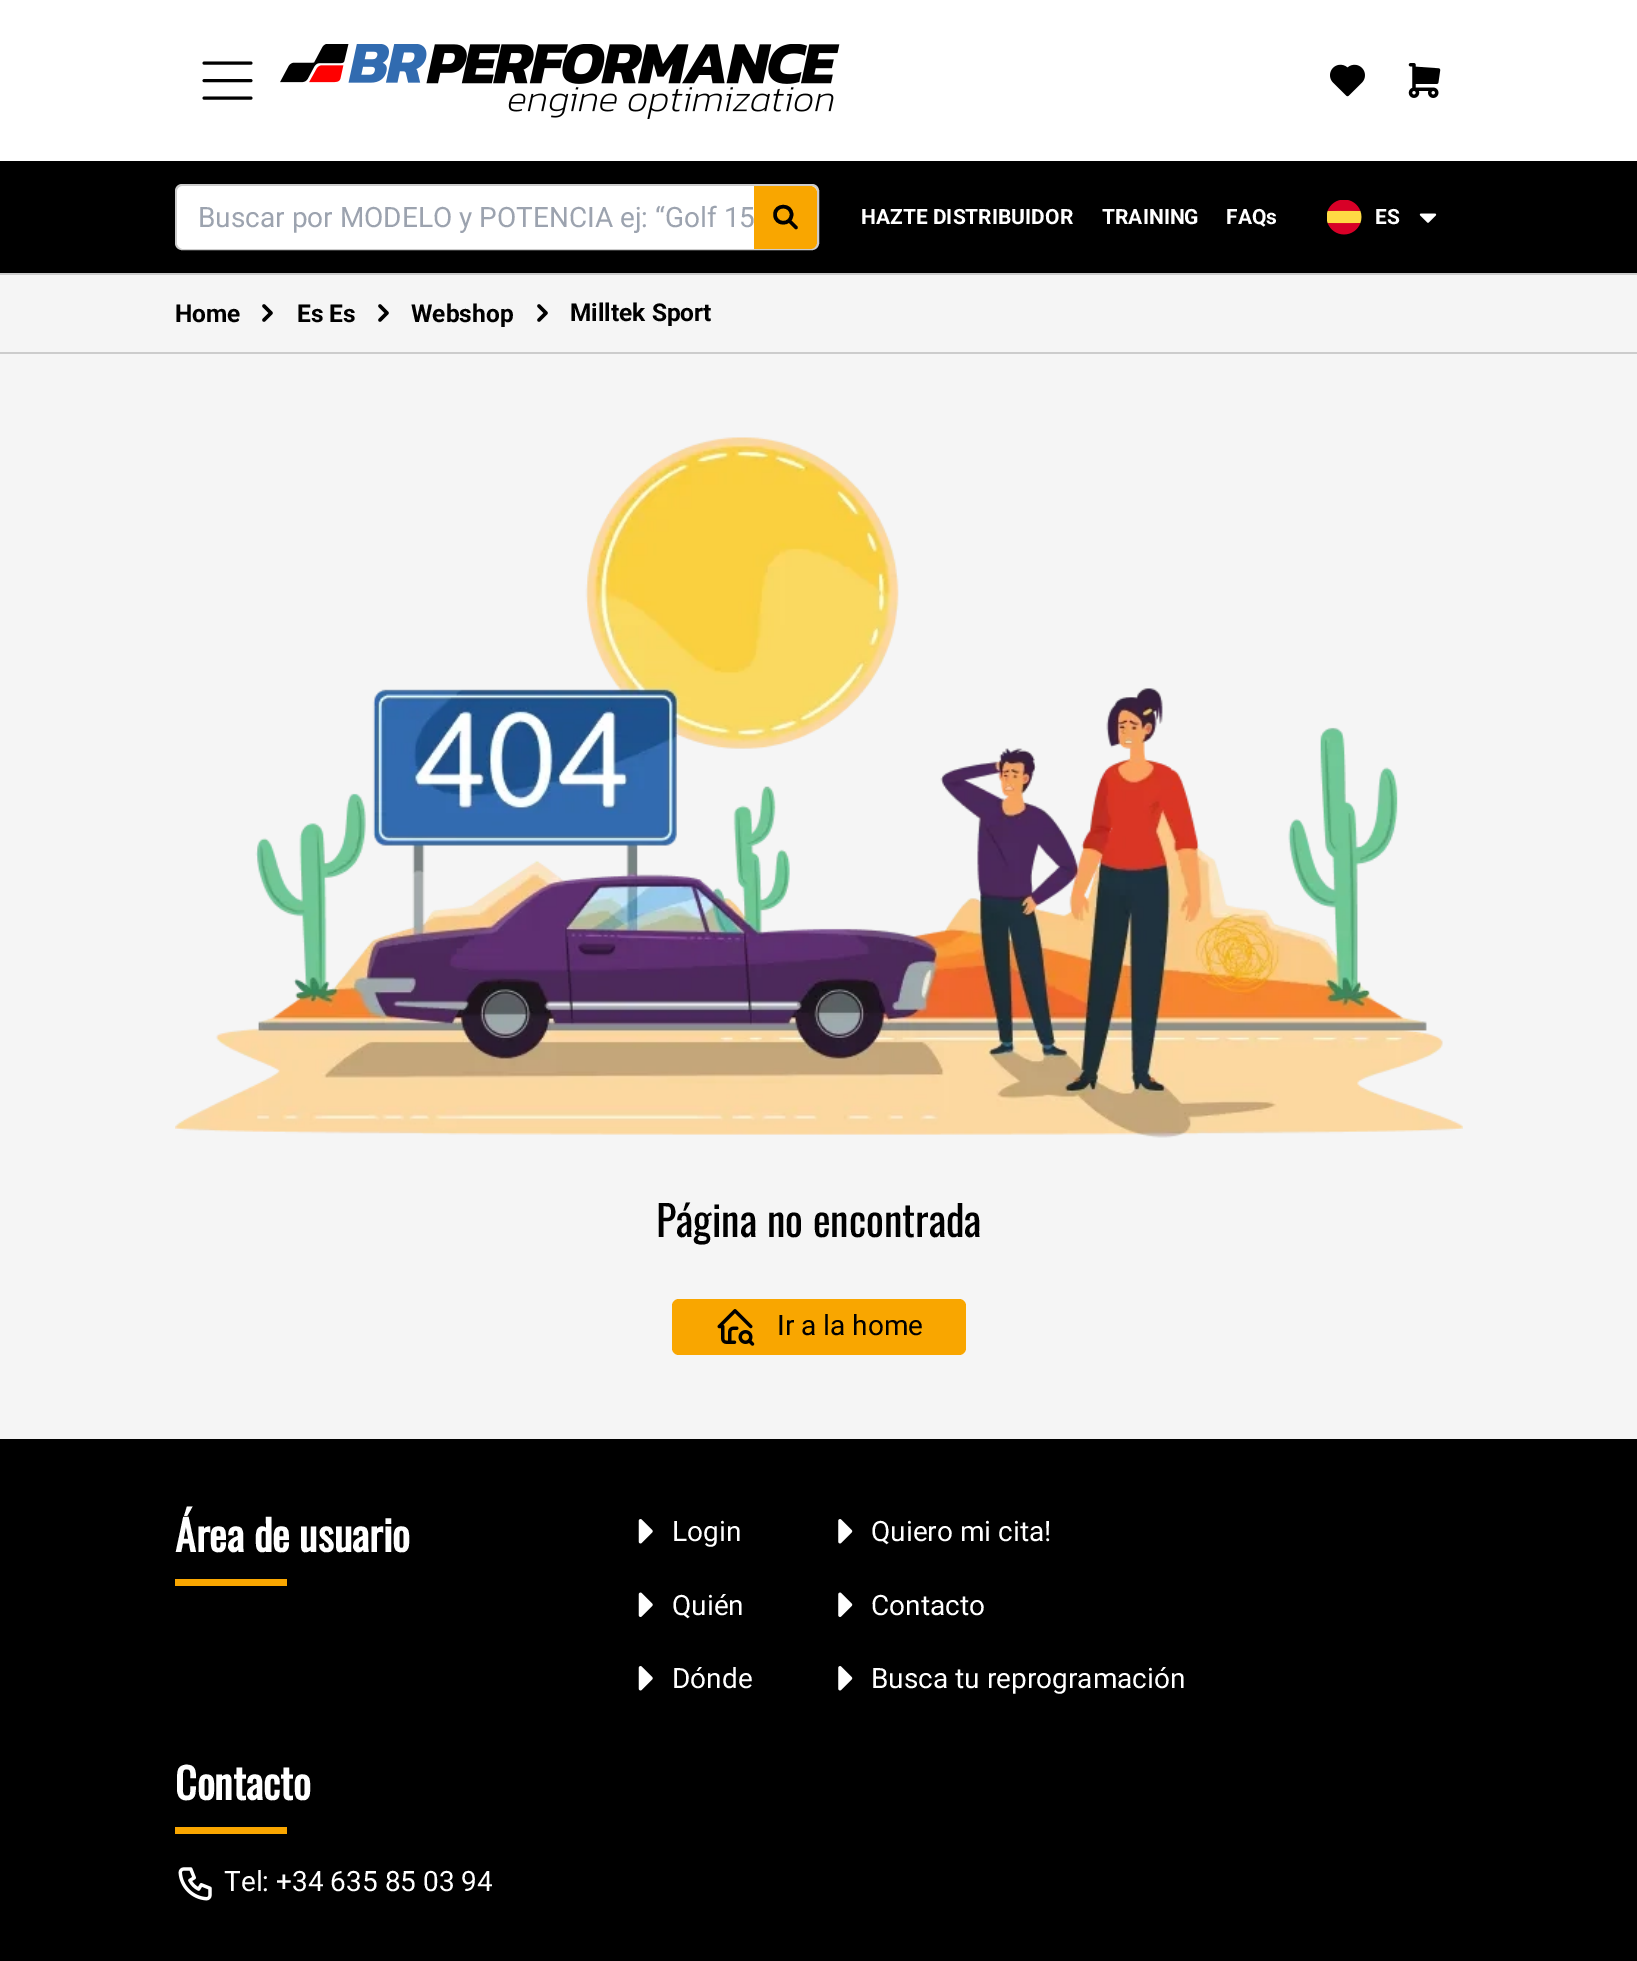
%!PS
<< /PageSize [1637 1961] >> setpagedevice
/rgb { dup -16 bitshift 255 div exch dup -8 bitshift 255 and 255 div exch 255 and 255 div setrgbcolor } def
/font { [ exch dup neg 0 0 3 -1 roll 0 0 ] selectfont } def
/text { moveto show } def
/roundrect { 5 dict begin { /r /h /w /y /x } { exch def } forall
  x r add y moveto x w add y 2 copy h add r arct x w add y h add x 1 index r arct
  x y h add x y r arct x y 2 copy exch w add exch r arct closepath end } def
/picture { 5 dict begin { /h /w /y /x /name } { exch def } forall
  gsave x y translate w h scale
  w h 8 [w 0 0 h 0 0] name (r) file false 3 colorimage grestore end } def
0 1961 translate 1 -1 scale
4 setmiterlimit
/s1 { /Roboto-Regular 28 font 16#9CA3AF rgb } def
/s2 { /Roboto-Bold 21 font 16#FFFFFF rgb } def
/s3 { /Roboto-Bold 24.5 font 16#000000 rgb } def
/s4 { /Oswald-Regular 42 font 16#000000 rgb } def
/s5 { /Roboto-Regular 28 font 16#000000 rgb } def
/s6 { /Oswald-Bold 42 font 16#FFFFFF rgb } def
/s7 { /Roboto-Regular 28 font 16#FFFFFF rgb } def
16#FFFFFF rgb
0 0 1637 1961 rectfill
16#000000 rgb
2.9 setlinewidth
1 setlinecap
1 setlinejoin
204 63 moveto 251 63 lineto 204 80.5 moveto 251 80.5 lineto 204 98 moveto 251 98 lineto stroke
(pic1.raw) 280 44 560 75 picture
(pic2.raw) 1330 64 35 33 picture
(pic3.raw) 1408 63 33 35 picture
0 161 1637 112 rectfill
16#FFFFFF rgb
176 185 642 64 6 roundrect gsave fill grestore
16#CCCCCC rgb
2 setlinewidth
0 setlinecap
0 setlinejoin
stroke
16#FFFFFF rgb
184 186 moveto 754 186 lineto 754 249 lineto 184 249 lineto 180 249 177 246 177 242 curveto 177 193 lineto 177 189 180 186 184 186 curveto closepath fill
s1
(Buscar por MODELO y POTENCIA ej: “Golf 15) 198 227 text
16#F9A600 rgb
754 186 moveto 810 186 lineto 814 186 817 189 817 193 curveto 817 242 lineto 817 246 814 249 810 249 curveto 754 249 lineto closepath fill
16#000000 rgb
3.5 setlinewidth
1 setlinecap
1 setlinejoin
775 214.5 moveto 775 225.5 791.5 225.5 791.5 214.5 curveto 791.5 204 775 204 775 214.5 curveto 796 227.5 moveto 789 220.5 lineto stroke
s2
(HAZTE DISTRIBUIDOR) 861 224 text
(TRAINING) 1102 224 text
(FAQs) 1226 224 text
(pic4.raw) 1327 200 35 35 picture
(ES) 1375 224 text
(pic5.raw) 1419 213 18 10 picture
16#F5F5F5 rgb
0 275 1637 77 rectfill
16#CCCCCC rgb
0 273 1637 2 rectfill
0 352 1637 2 rectfill
s3
(Home) 175 322 text
264 306 moveto 271 313 lineto 264 320 lineto stroke
(Es Es) 297 322 text
380 306 moveto 387 313 lineto 380 320 lineto stroke
(Webshop) 411 322 text
539 306 moveto 546 313 lineto 539 320 lineto stroke
(Milltek Sport) 570 321 text
16#F5F5F5 rgb
0 354 1637 1085 rectfill
(pic6.raw) 175 437 1288 701 picture
s4
(Página no encontrada) 656 1237 text
16#F9A600 rgb
672 1299 294 56 7 roundrect fill
(pic7.raw) 717 1309 38 37 picture
s5
(Ir a la home) 777 1335 text
0 1439 1637 522 rectfill
s6
(Área de usuario) 175 1552 text
16#F9A600 rgb
175 1579 112 7 rectfill
(pic8.raw) 638 1519 15 25 picture
s7
(Login) 672 1541 text
(pic9.raw) 838 1519 15 25 picture
(Quiero mi cita!) 871 1541 text
(pic10.raw) 638 1592 15 25 picture
(Quién) 672 1615 text
(pic11.raw) 838 1592 15 25 picture
(Contacto) 871 1615 text
(pic8.raw) 638 1666 15 25 picture
(Dónde) 672 1688 text
(pic9.raw) 838 1666 15 25 picture
(Busca tu reprogramación) 871 1688 text
s6
(Contacto) 175 1800 text
16#F9A600 rgb
175 1827 112 7 rectfill
(pic12.raw) 178 1867 34 34 picture
s7
(Tel: +34 635 85 03 94) 224 1891 text
showpage
